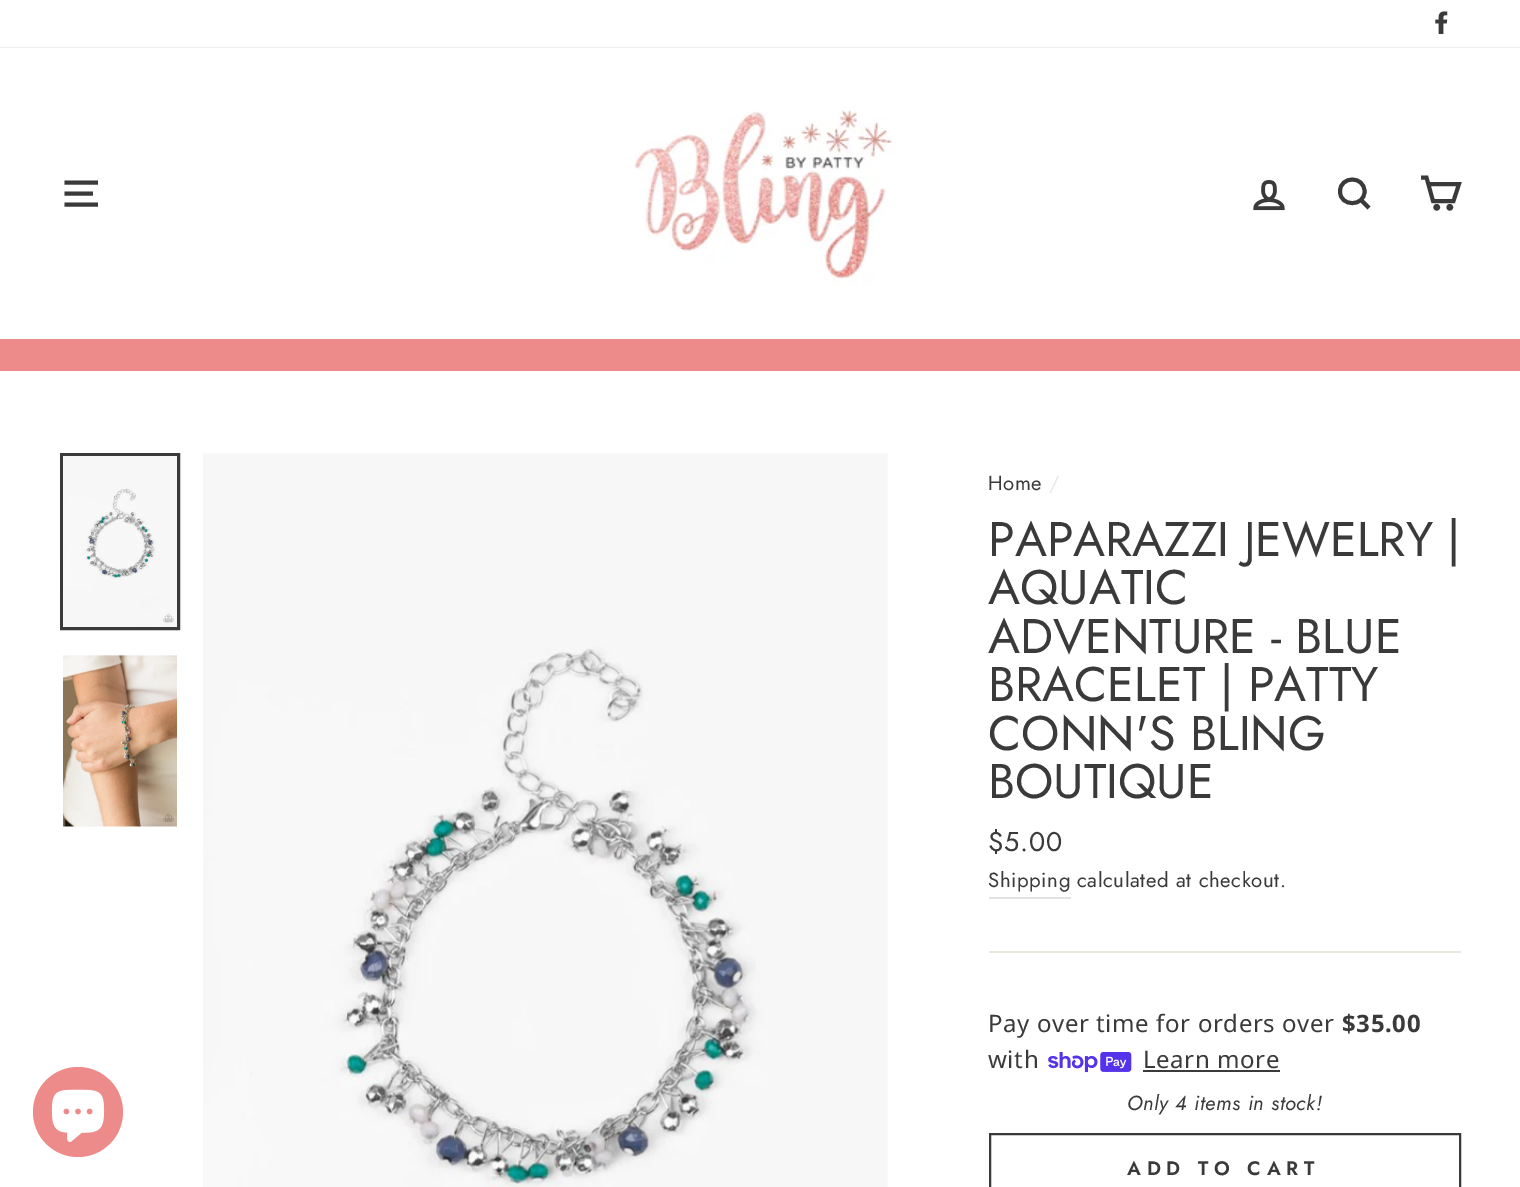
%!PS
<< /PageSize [1520 1187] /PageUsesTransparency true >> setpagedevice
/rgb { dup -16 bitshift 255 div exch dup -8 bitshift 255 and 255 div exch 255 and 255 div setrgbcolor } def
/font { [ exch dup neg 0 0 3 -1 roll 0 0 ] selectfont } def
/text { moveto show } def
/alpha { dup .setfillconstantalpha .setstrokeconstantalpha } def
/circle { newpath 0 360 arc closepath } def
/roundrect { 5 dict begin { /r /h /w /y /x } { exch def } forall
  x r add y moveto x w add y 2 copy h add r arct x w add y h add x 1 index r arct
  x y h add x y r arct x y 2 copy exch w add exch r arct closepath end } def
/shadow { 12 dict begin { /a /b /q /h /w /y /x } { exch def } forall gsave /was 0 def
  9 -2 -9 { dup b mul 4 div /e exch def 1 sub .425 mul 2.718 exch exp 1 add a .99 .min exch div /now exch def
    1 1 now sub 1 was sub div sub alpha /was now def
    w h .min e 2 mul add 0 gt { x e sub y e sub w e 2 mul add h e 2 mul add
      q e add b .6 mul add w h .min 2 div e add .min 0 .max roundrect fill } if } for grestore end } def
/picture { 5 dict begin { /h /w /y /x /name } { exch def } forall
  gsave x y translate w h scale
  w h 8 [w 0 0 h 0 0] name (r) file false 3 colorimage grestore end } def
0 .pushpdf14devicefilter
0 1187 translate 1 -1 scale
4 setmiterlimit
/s1 { /Jost-Regular 48.5 font 16#3A3A3A rgb } def
16#FFFFFF rgb
0 0 1520 1187 rectfill
16#ED8A8A rgb
78 1112 45 circle fill
(pic1.raw) 51 1089 54 53 picture
(pic2.raw) 1435 11 13 23 picture
gsave
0 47 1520 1 rectclip
16#000000 rgb
0 48 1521 291 0 1 0.2 shadow
grestore
16#3A3A3A rgb
3.9 setlinewidth
64.5 182.5 moveto 98 182.5 lineto 64.5 193.5 moveto 93 193.5 lineto 64.5 204.5 moveto 98 204.5 lineto stroke
(pic3.raw) 634 110 264 175 picture
(pic4.raw) 1253 180 32 31 picture
1364.5 191.5 moveto 1364.5 207 1340 207 1340 191.5 curveto 1340 175.5 1364.5 175.5 1364.5 191.5 curveto closepath 1369 208 moveto 1361 200 lineto stroke
1428 184 moveto 1459 184 lineto 1453.5 201 lineto 1433 201 lineto 1426.5 177.5 lineto 1421 177.5 lineto stroke
1436.7 207.3 1.3 circle gsave fill grestore
stroke
1449.8 207.3 1.3 circle gsave fill grestore
stroke
16#ED8A8A rgb
0 339 1520 32 rectfill
16#3A3A3A rgb
3 setlinewidth
61.5 454.5 117 174 rectstroke
(pic5.raw) 63 456 114 171 picture
(pic6.raw) 63 655 114 172 picture
(pic7.raw) 203 453 685 734 picture
/Jost-Regular 20.4 font
988 490 moveto 0.6 0 (Home) ashow
16#E8E8E1 rgb
1049 490 moveto 0.6 0 (/) ashow
s1
(PAPARAZZI JEWELRY |) 988 556 text
(AQUATIC) 988 604 text
(ADVENTURE - BLUE) 988 653 text
(BRACELET | PATTY) 988 701 text
(CONN'S BLING) 988 750 text
(BOUTIQUE) 988 798 text
/Jost-Regular 27 font
988 851 moveto 0.6 0 ($5.00) ashow
16#E1E1E1 rgb
989 897 82 2 rectfill
/Jost-Regular 20.4 font
16#3A3A3A rgb
988 887 moveto 0.6 0 (Shipping) ashow
1077 887 moveto 0.6 0 (calculated at checkout.) ashow
16#E8E8E1 rgb
989 951 472 2 rectfill
/NotoSans-Regular 24 font
16#3A3A3A rgb
988 1032 moveto 0.6 0 (Pay over time for orders over) ashow
/NotoSans-Bold 24 font
1342 1032 moveto 0.6 0 ($35.00) ashow
/NotoSans-Regular 24 font
988 1068 moveto 0.6 0 (with) ashow
(pic8.raw) 1048 1052 84 21 picture
1143 1068 moveto 0.6 0 (Learn more) ashow
1143 1070 137 2 rectfill
/Jost-Italic 20.4 font
1127 1110 moveto 0.6 0 (Only 4 items in stock!) ashow
2 setlinewidth
990 1134 470 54 rectstroke
/Jost-SemiBold 19.5 font
1127 1175 moveto 5.8 0 (ADD TO CART) ashow
.poppdf14devicefilter showpage
